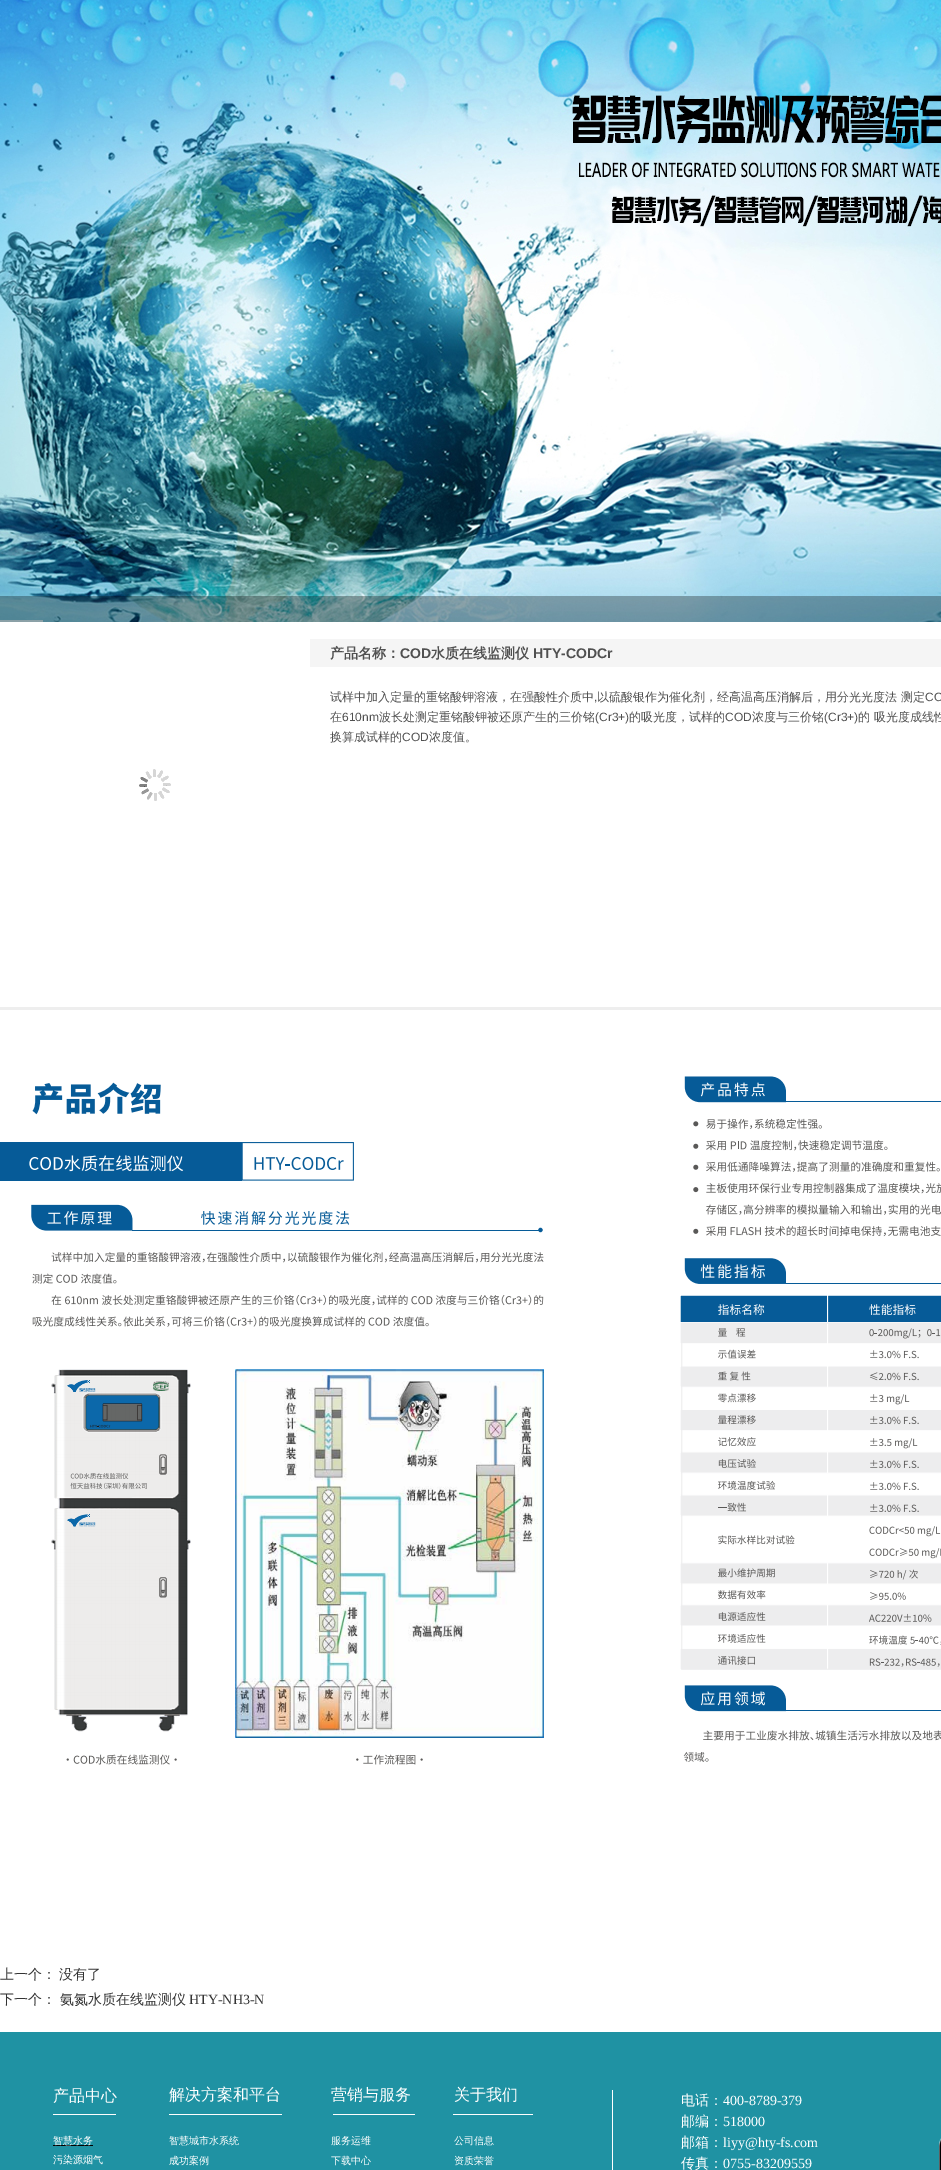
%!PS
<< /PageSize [941 2170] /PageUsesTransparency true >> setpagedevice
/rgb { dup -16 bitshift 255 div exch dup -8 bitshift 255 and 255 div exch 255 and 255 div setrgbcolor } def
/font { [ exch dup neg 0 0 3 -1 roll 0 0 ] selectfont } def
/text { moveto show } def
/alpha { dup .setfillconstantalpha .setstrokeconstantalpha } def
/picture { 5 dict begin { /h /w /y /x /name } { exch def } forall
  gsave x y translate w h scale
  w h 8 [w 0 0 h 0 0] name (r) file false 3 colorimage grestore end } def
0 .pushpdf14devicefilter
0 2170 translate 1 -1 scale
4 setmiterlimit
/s1 { /WenQuanYiZenHei-Bold 14 font 16#505050 rgb } def
/s2 { /LiberationSans-Bold 14 font 16#505050 rgb } def
/s3 { /WenQuanYiZenHei-Medium 12 font 16#505050 rgb } def
/s4 { /LiberationSans-Regular 12 font 16#505050 rgb } def
/s5 { /WenQuanYiZenHei-Medium 14 font 16#333333 rgb } def
/s6 { /LiberationSerif-Regular 14 font 16#333333 rgb } def
/s7 { /WenQuanYiZenHei-Medium 16 font 16#FFFFFF rgb } def
/s8 { /WenQuanYiZenHei-Medium 10 font 16#FFFFFF rgb } def
/s9 { /WenQuanYiZenHei-Medium 14 font 16#FFFFFF rgb } def
/s10 { /LiberationSerif-Regular 14 font 16#FFFFFF rgb } def
16#FFFFFF rgb
0 0 941 2170 rectfill
(pic1.raw) 0 0 941 622 picture
0.6 alpha
0 620 43 2 rectfill
0.3 alpha
16#000000 rgb
0 596 941 26 rectfill
1 alpha
16#F5F5F5 rgb
310 639 631 28 rectfill
s1
(产品名称：) 330 658 text
s2
(COD) 400 658 text
s1
(水质在线监测仪) 431 658 text
s2
(HTY-CODCr) 533 658 text
s3
(试样中加入定量的重铭酸钾溶液，在强酸性介质中) 330 701 text
s4
(,) 594 701 text
s3
(以硫酸银作为催化剂，经高温高压消解后，用分光光度法 测定) 597 701 text
s4
(CO) 925 701 text
s3
(在) 330 721 text
s4
(610nm) 342 721 text
s3
(波长处测定重铭酸钾被还原产生的三价铭) 379 721 text
s4
(\(Cr3+\)) 595 721 text
s3
(的吸光度，试样的) 629 721 text
s4
(COD) 725 721 text
s3
(浓度与三价铭) 752 721 text
s4
(\(Cr3+\)) 824 721 text
s3
(的 吸光度成线性) 858 721 text
(换算成试样的) 330 741 text
s4
(COD) 402 741 text
s3
(浓度值。) 429 741 text
(pic2.raw) 139 769 32 32 picture
16#EEEEEE rgb
0 1007 941 3 rectfill
(pic3.raw) 0 1076 941 689 picture
/WenQuanYiZenHei-Medium 14 font
16#333333 rgb
0 1979 moveto -1 0 32 (上一个： 没有了) widthshow
(下一个：) 0 2004 text
(氨氮水质在线监测仪) 60 2004 text
s6
(HTY-NH3-N) 189 2004 text
16#1F92A3 rgb
0 2032 941 138 rectfill
s7
(产品中心) 53 2101 text
16#000000 rgb
53 2145 40 1 rectfill
s8
(智慧水务) 53 2144 text
(污染源烟气) 53 2163 text
s7
(解决方案和平台) 169 2100 text
s8
(智慧城市水系统) 169 2144 text
(成功案例) 169 2164 text
s7
(营销与服务) 331 2100 text
s8
(服务运维) 331 2144 text
(下载中心) 331 2164 text
s7
(关于我们) 454 2100 text
s8
(公司信息) 454 2144 text
(资质荣誉) 454 2164 text
612 2090 1 80 rectfill
s9
(电话：) 681 2105 text
s10
(400-8789-379) 723 2105 text
s9
(邮编：) 681 2126 text
s10
(518000) 723 2126 text
s9
(邮箱：) 681 2147 text
s10
(liyy@hty-fs.com) 723 2147 text
s9
(传真：) 681 2168 text
s10
(0755-83209559) 723 2168 text
16#FDFDFD rgb
53 2114 63 1 rectfill
169 2114 113 1 rectfill
333 2114 82 1 rectfill
453 2114 80 1 rectfill
(pic4.raw) 939 2138 2 32 picture
.poppdf14devicefilter showpage
